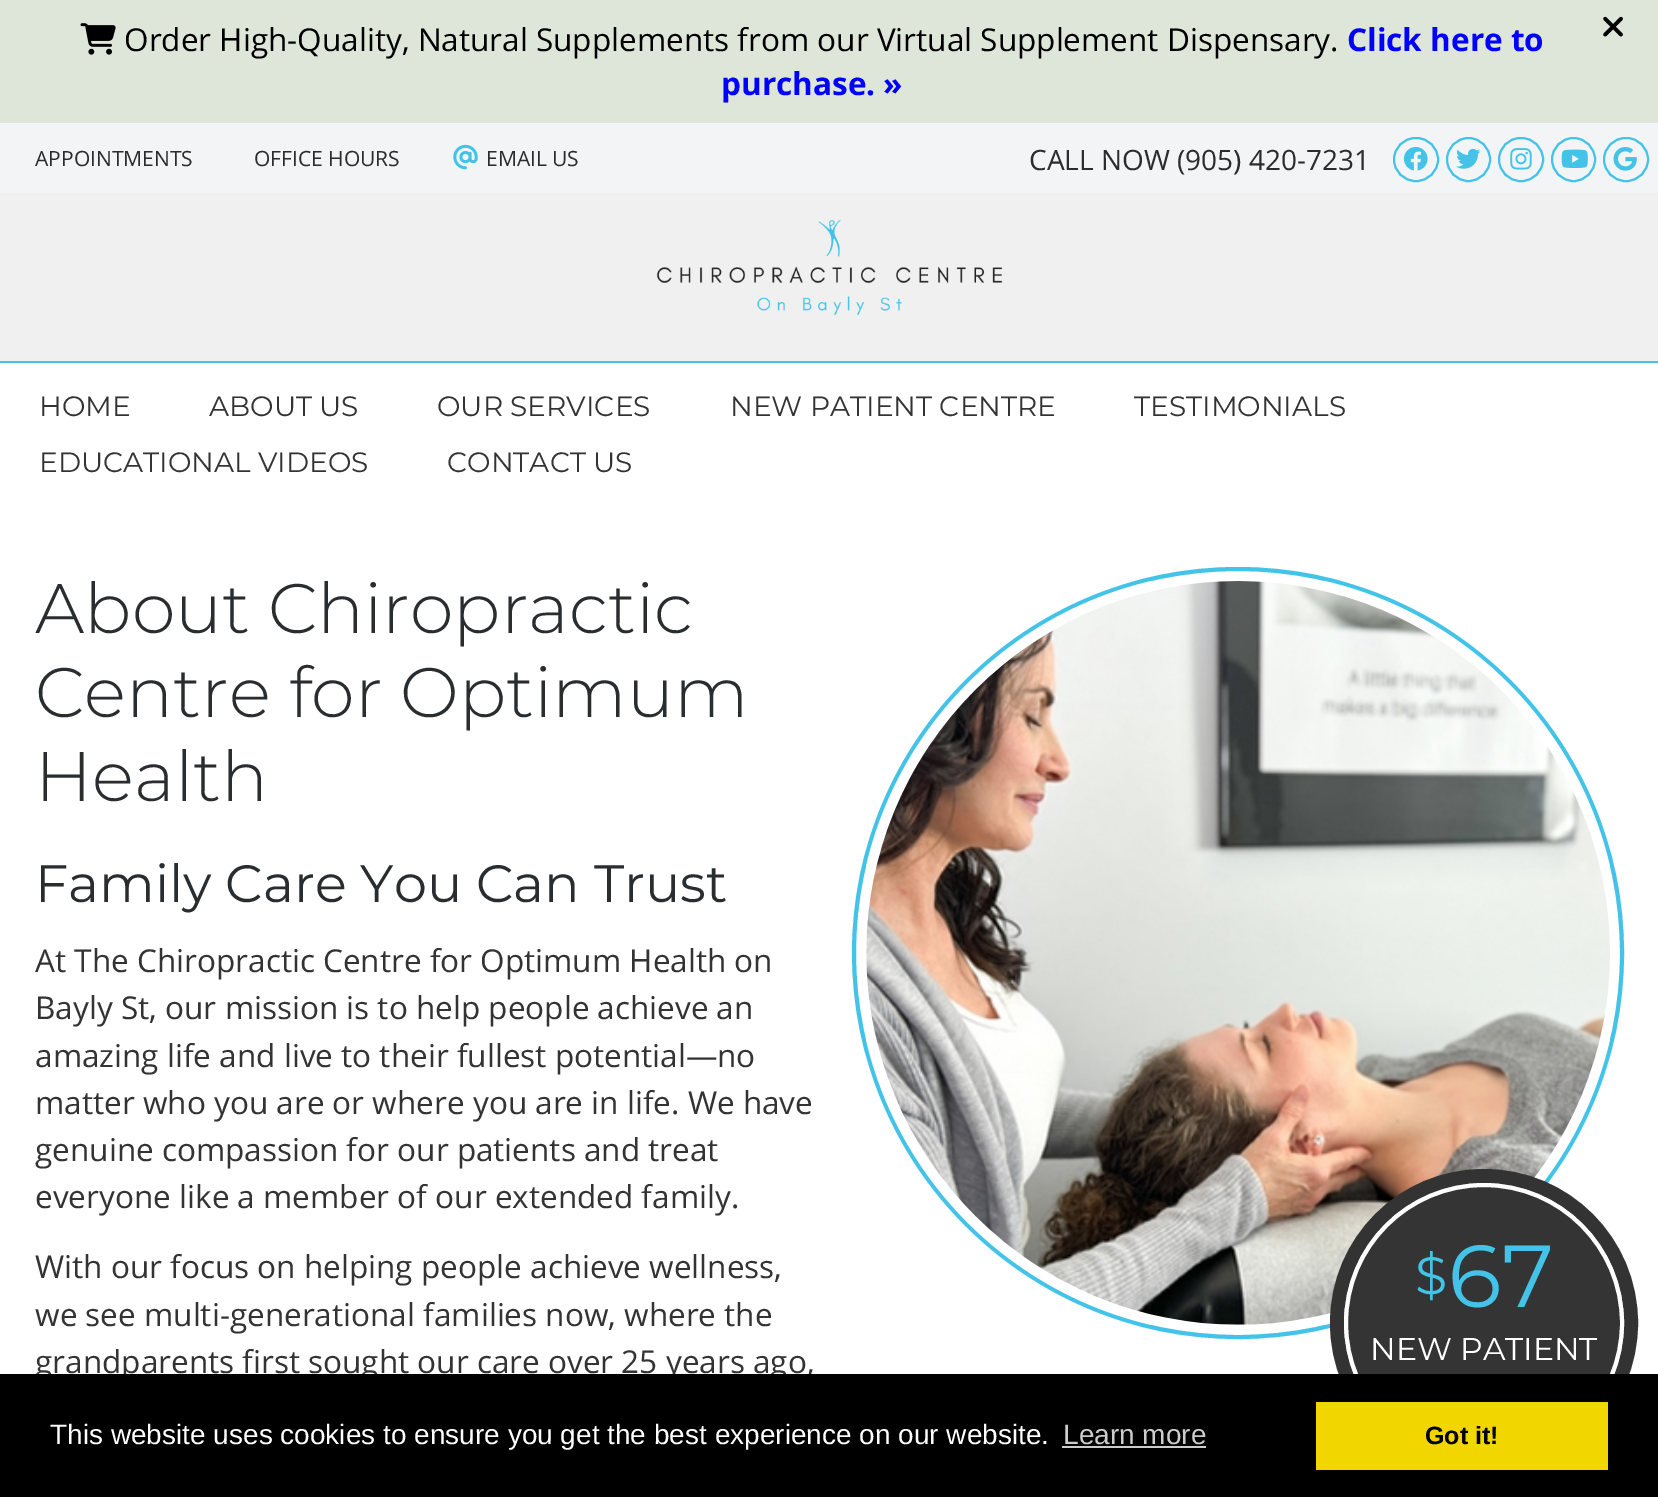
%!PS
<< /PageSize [1658 1497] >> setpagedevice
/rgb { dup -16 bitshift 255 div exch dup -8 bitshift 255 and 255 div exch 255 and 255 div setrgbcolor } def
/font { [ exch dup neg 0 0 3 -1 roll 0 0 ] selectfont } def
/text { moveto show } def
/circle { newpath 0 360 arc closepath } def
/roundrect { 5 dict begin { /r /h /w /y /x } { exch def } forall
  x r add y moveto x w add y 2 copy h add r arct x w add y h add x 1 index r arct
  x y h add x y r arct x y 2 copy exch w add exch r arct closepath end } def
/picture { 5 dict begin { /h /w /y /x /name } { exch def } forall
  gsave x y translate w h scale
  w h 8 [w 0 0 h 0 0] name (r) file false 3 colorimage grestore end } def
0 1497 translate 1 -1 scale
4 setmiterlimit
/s1 { /OpenSans-Regular 31.5 font 16#000000 rgb } def
/s2 { /OpenSans-Bold 31.5 font 16#0000FF rgb } def
/s3 { /OpenSans-Regular 21 font 16#292D2F rgb } def
/s4 { /OpenSans-Regular 28 font 16#292D2F rgb } def
/s5 { /Montserrat-Regular 28 font 16#333333 rgb } def
/s6 { /Montserrat-Light 70 font 16#292D2F rgb } def
/s7 { /Montserrat-Regular 52.5 font 16#292D2F rgb } def
/s8 { /OpenSans-Regular 31.5 font 16#333333 rgb } def
/s9 { /Montserrat-Regular 52.5 font 16#43C3E8 rgb } def
/s10 { /Montserrat-Regular 88 font 16#43C3E8 rgb } def
/s11 { /Montserrat-Regular 31.5 font 16#FFFFFF rgb } def
/s12 { /LiberationSans-Regular 28 font 16#FFFFFF rgb } def
/s13 { /LiberationSans-Regular 28 font 16#CCCCCC rgb } def
/s14 { /LiberationSans-Bold 25 font 16#000000 rgb } def
16#FFFFFF rgb
0 0 1658 1497 rectfill
16#DEE6D9 rgb
0 0 1658 123 rectfill
(pic1.raw) 80 23 36 32 picture
s1
(Order High-Quality, Natural Supplements from our Virtual Supplement Dispensary.) 124 51 text
s2
(Click here to) 1347 51 text
(purchase. ») 721 95 text
(pic2.raw) 1603 16 20 21 picture
16#F3F4F5 rgb
0 123 1658 70 rectfill
s3
(APPOINTMENTS) 35 166 text
(OFFICE HOURS) 254 166 text
(pic3.raw) 453 144 25 26 picture
(EMAIL US) 486 166 text
s4
(CALL NOW \(905\) 420-7231) 1029 170 text
16#43C3E8 rgb
2 setlinewidth
1394 138 44 43 21.5 roundrect stroke
(pic4.raw) 1403 146 25 25 picture
1468.5 159.5 21.5 circle stroke
(pic5.raw) 1456 148 25 21 picture
1499 138 44 43 21.5 roundrect stroke
(pic6.raw) 1510 148 22 22 picture
1573.5 159.5 21.5 circle stroke
(pic7.raw) 1561 149 27 19 picture
1604 138 44 43 21.5 roundrect stroke
(pic8.raw) 1613 146 24 25 picture
16#F0F0F0 rgb
0 193 1658 168 rectfill
(pic9.raw) 656 219 347 96 picture
16#43C3E8 rgb
0 361 1658 2 rectfill
s5
(HOME) 39 416 text
(ABOUT US) 209 416 text
(OUR SERVICES) 437 416 text
(NEW PATIENT CENTRE) 730 416 text
(TESTIMONIALS) 1134 416 text
(EDUCATIONAL VIDEOS) 39 472 text
(CONTACT US) 447 472 text
s6
(About Chiropractic) 35 633 text
(Centre for Optimum) 35 717 text
(Health) 35 801 text
16#43C3E8 rgb
4 setlinewidth
1238 953 384 circle stroke
(pic10.raw) 866 581 744 744 picture
s7
(Family Care You Can Trust) 35 902 text
s8
(At The Chiropractic Centre for Optimum Health on) 35 972 text
(Bayly St, our mission is to help people achieve an) 35 1019 text
(amazing life and live to their fullest potential—no) 35 1067 text
(matter who you are or where you are in life. We have) 35 1114 text
(genuine compassion for our patients and treat) 35 1161 text
(everyone like a member of our extended family.) 35 1208 text
(With our focus on helping people achieve wellness,) 35 1278 text
(we see multi-generational families now, where the) 35 1326 text
(grandparents first sought our care over 25 years ago,) 35 1373 text
14 setlinewidth
1484 1323 147 circle stroke
16#343434 rgb
1484 1323 138 circle gsave fill grestore
16#FFFFFF rgb
4 setlinewidth
stroke
s9
($) 1415 1294 text
s10
(67) 1448 1307 text
s11
(NEW PATIENT) 1370 1360 text
16#000000 rgb
0 1374 1658 123 rectfill
s12
(This website uses cookies to ensure you get the best experience on our website.) 50 1444 text
s13
(Learn more) 1063 1444 text
1062 1446 144 2 rectfill
16#F1D600 rgb
1316 1402 292 68 rectfill
s14
(Got it!) 1425 1444 text
showpage
